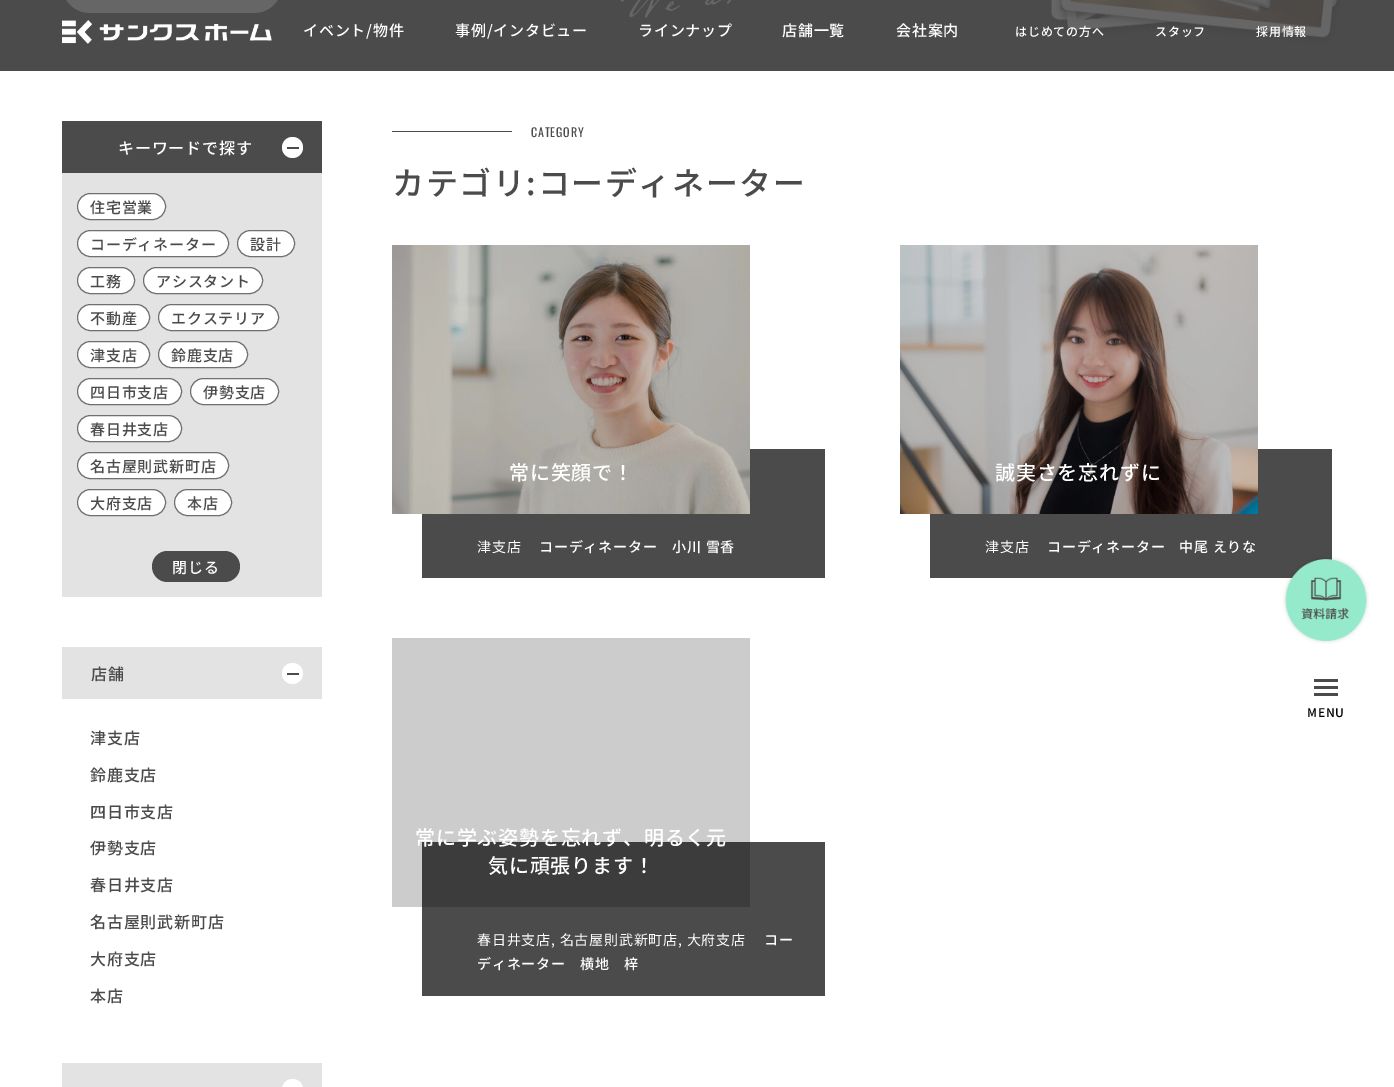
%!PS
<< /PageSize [1394 1087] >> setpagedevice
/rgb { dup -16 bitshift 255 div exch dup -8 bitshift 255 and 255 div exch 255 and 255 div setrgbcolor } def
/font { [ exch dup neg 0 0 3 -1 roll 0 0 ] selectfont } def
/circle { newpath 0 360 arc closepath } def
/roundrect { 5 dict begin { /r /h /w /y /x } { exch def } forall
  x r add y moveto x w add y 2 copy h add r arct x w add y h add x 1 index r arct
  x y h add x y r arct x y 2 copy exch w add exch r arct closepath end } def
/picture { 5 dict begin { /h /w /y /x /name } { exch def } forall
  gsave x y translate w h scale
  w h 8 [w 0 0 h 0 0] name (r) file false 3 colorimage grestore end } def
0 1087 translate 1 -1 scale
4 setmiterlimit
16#FFFFFF rgb
0 0 1394 1087 rectfill
16#CCCCCC rgb
392 638 358 269 rectfill
16#4B4B4B rgb
62 0 1270 71 rectfill
(pic1.raw) 62 20 210 24 picture
/NotoSansJP-Medium 15 font
16#FFFFFF rgb
303 36 moveto 0.8 0 (イベント/物件) ashow
455 36 moveto 0.8 0 (事例/インタビュー) ashow
638 36 moveto 0.8 0 (ラインナップ) ashow
782 36 moveto 0.8 0 (店舗一覧) ashow
896 36 moveto 0.8 0 (会社案内) ashow
16#4B4B4B rgb
1332 0 62 71 rectfill
(pic3.raw) 1050 0 291 45 picture
/NotoSansJP-Medium 12 font
16#FFFFFF rgb
1015 36 moveto 0.8 0 (はじめての方へ) ashow
1155 36 moveto 0.8 0 (スタッフ) ashow
1256 36 moveto 0.8 0 (採用情報) ashow
16#666666 rgb
62 -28 220 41 28 roundrect fill
(pic2.raw) 620 0 111 18 picture
16#4B4B4B rgb
0 0 62 71 rectfill
62 121 260 52 rectfill
/NotoSansJP-Medium 16 font
16#FFFFFF rgb
118 154 moveto 0.8 0 (キーワードで探す) ashow
292.5 147.5 10.5 circle fill
16#4B4B4B rgb
287 147 12 2 rectfill
16#E3E3E3 rgb
62 173 260 424 rectfill
16#FFFFFF rgb
77.5 193.5 88 26 13 roundrect gsave fill grestore
16#707070 rgb
stroke
/NotoSansJP-Medium 15 font
16#4B4B4B rgb
90 213 moveto 0.8 0 (住宅営業) ashow
16#FFFFFF rgb
77.5 230.5 151 26 13 roundrect gsave fill grestore
16#707070 rgb
stroke
16#4B4B4B rgb
90 250 moveto 0.8 0 (コーディネーター) ashow
16#FFFFFF rgb
237.5 230.5 57 26 13 roundrect gsave fill grestore
16#707070 rgb
stroke
16#4B4B4B rgb
250 250 moveto 0.8 0 (設計) ashow
16#FFFFFF rgb
77.5 267.5 57 26 13 roundrect gsave fill grestore
16#707070 rgb
stroke
16#4B4B4B rgb
90 287 moveto 0.8 0 (工務) ashow
16#FFFFFF rgb
143.5 267.5 119 26 13 roundrect gsave fill grestore
16#707070 rgb
stroke
16#4B4B4B rgb
156 287 moveto 0.8 0 (アシスタント) ashow
16#FFFFFF rgb
77.5 304.5 72 26 13 roundrect gsave fill grestore
16#707070 rgb
stroke
16#4B4B4B rgb
90 324 moveto 0.8 0 (不動産) ashow
16#FFFFFF rgb
158.5 304.5 120 26 13 roundrect gsave fill grestore
16#707070 rgb
stroke
16#4B4B4B rgb
171 324 moveto 0.8 0 (エクステリア) ashow
16#FFFFFF rgb
77.5 341.5 72 26 13 roundrect gsave fill grestore
16#707070 rgb
stroke
16#4B4B4B rgb
90 361 moveto 0.8 0 (津支店) ashow
16#FFFFFF rgb
158.5 341.5 89 26 13 roundrect gsave fill grestore
16#707070 rgb
stroke
16#4B4B4B rgb
171 361 moveto 0.8 0 (鈴鹿支店) ashow
16#FFFFFF rgb
77.5 378.5 104 26 13 roundrect gsave fill grestore
16#707070 rgb
stroke
16#4B4B4B rgb
90 398 moveto 0.8 0 (四日市支店) ashow
16#FFFFFF rgb
190.5 378.5 88 26 13 roundrect gsave fill grestore
16#707070 rgb
stroke
16#4B4B4B rgb
203 398 moveto 0.8 0 (伊勢支店) ashow
16#FFFFFF rgb
77.5 415.5 104 26 13 roundrect gsave fill grestore
16#707070 rgb
stroke
16#4B4B4B rgb
90 435 moveto 0.8 0 (春日井支店) ashow
16#FFFFFF rgb
77.5 452.5 151 26 13 roundrect gsave fill grestore
16#707070 rgb
stroke
16#4B4B4B rgb
90 472 moveto 0.8 0 (名古屋則武新町店) ashow
16#FFFFFF rgb
77.5 489.5 88 26 13 roundrect gsave fill grestore
16#707070 rgb
stroke
16#4B4B4B rgb
90 509 moveto 0.8 0 (大府支店) ashow
16#FFFFFF rgb
174.5 489.5 57 26 13 roundrect gsave fill grestore
16#707070 rgb
stroke
16#4B4B4B rgb
187 509 moveto 0.8 0 (本店) ashow
152 551 88 31 15.5 roundrect fill
16#FFFFFF rgb
172 573 moveto 0.8 0 (閉じる) ashow
16#E3E3E3 rgb
62 647 260 52 rectfill
/NotoSansJP-Medium 16 font
16#4B4B4B rgb
91 680 moveto 0.8 0 (店舗) ashow
16#FFFFFF rgb
292.5 673.5 10.5 circle fill
16#4B4B4B rgb
287 673 12 2 rectfill
90 744 moveto 0.8 0 (津支店) ashow
90 781 moveto 0.8 0 (鈴鹿支店) ashow
90 818 moveto 0.8 0 (四日市支店) ashow
90 854 moveto 0.8 0 (伊勢支店) ashow
90 891 moveto 0.8 0 (春日井支店) ashow
90 928 moveto 0.8 0 (名古屋則武新町店) ashow
90 965 moveto 0.8 0 (大府支店) ashow
90 1002 moveto 0.8 0 (本店) ashow
16#E3E3E3 rgb
62 1063 260 24 rectfill
16#FFFFFF rgb
292.5 1089.5 10.5 circle fill
16#4B4B4B rgb
392 131 120 1 rectfill
/Oswald-Regular 12 font
531 137 moveto 0.8 0 (CATEGORY) ashow
/NotoSansJP-Medium 32 font
392 195 moveto 1.6 0 (カテゴリ:コーディネーター) ashow
422 449 403 129 rectfill
(pic4.raw) 392 245 358 269 picture
/NotoSansJP-Medium 20 font
16#FFFFFF rgb
509 480 moveto 0.8 0 (常に笑顔で！) ashow
/NotoSansJP-Regular 14 font
477 552 moveto 0.8 0 (津支店) ashow
/NotoSansJP-Medium 14 font
539 552 moveto 0.8 0 (コーディネーター) ashow
672 552 moveto 0.8 0 (小川 雪香) ashow
16#4B4B4B rgb
930 449 402 129 rectfill
(pic5.raw) 900 245 358 269 picture
/NotoSansJP-Medium 20 font
16#FFFFFF rgb
995 480 moveto 0.8 0 (誠実さを忘れずに) ashow
/NotoSansJP-Regular 14 font
985 552 moveto 0.8 0 (津支店) ashow
/NotoSansJP-Medium 14 font
1047 552 moveto 0.8 0 (コーディネーター) ashow
1179 552 moveto 0.8 0 (中尾 えりな) ashow
16#4B4B4B rgb
422 842 403 154 rectfill
16#3C3C3C rgb
422 842 328 65 rectfill
/NotoSansJP-Medium 20 font
16#FFFFFF rgb
415 845 moveto 0.8 0 (常に学ぶ姿勢を忘れず、明るく元) ashow
488 873 moveto 0.8 0 (気に頑張ります！) ashow
/NotoSansJP-Regular 14 font
477 945 moveto 0.8 0 (春日井支店, 名古屋則武新町店, 大府支店) ashow
/NotoSansJP-Medium 14 font
764 945 moveto 0.8 0 (コー) ashow
477 969 moveto 0.8 0 (ディネーター) ashow
580 969 moveto 0.8 0 (横地　梓) ashow
(pic6.raw) 1283 557 86 87 picture
16#4B4B4B rgb
1314 679 24 3 rectfill
1314 686 24 3 rectfill
1314 693 24 3 rectfill
/NotoSansJP-Medium 12 font
16#000000 rgb
1307 717 moveto 0.8 0 (MENU) ashow
showpage
